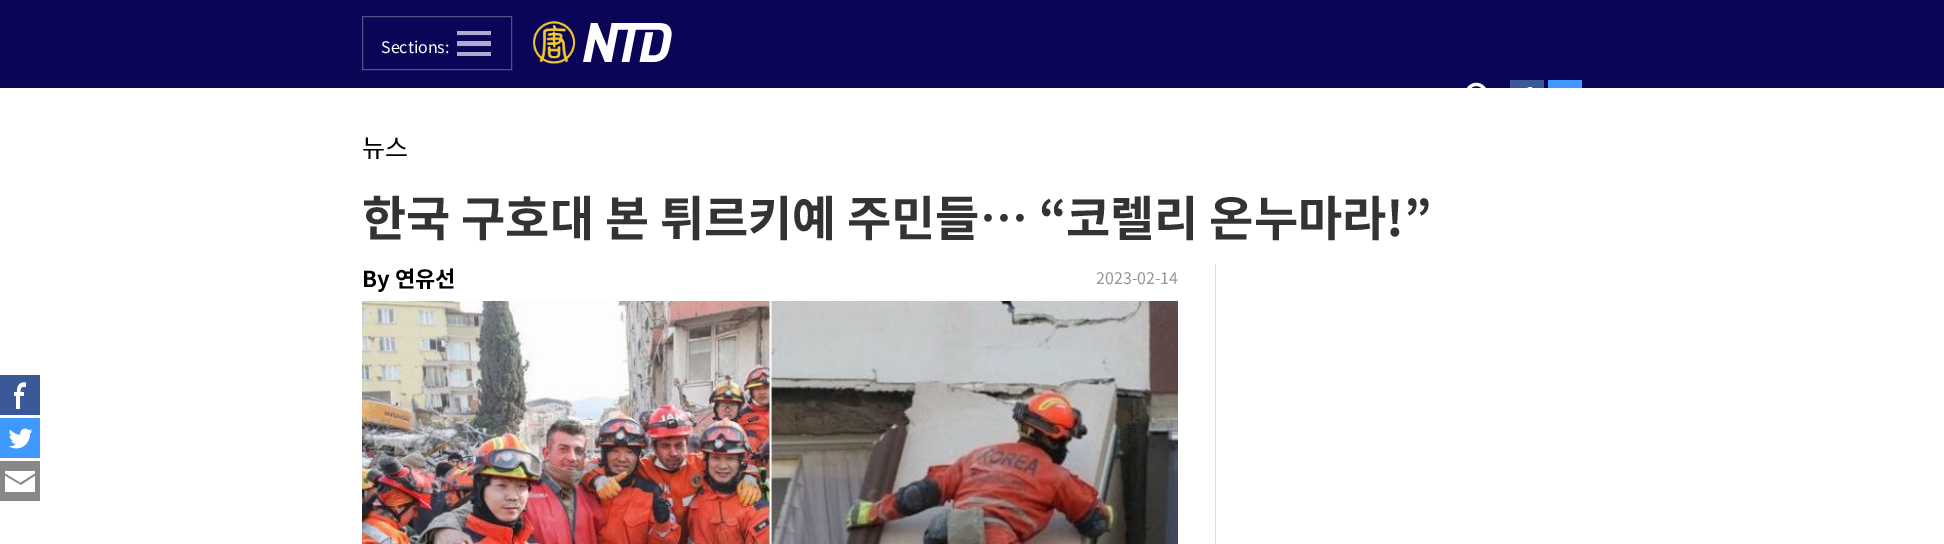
%!PS
<< /PageSize [1944 544] >> setpagedevice
/rgb { dup -16 bitshift 255 div exch dup -8 bitshift 255 and 255 div exch 255 and 255 div setrgbcolor } def
/font { [ exch dup neg 0 0 3 -1 roll 0 0 ] selectfont } def
/text { moveto show } def
/picture { 5 dict begin { /h /w /y /x /name } { exch def } forall
  gsave x y translate w h scale
  w h 8 [w 0 0 h 0 0] name (r) file false 3 colorimage grestore end } def
0 544 translate 1 -1 scale
4 setmiterlimit
/s1 { /NotoSansKR-Regular 16 font 16#FFFFFF rgb } def
/s2 { /NotoSansKR-Regular 25 font 16#000000 rgb } def
/s3 { /NotoSansKR-Bold 48 font 16#333333 rgb } def
/s4 { /NotoSansKR-Bold 22 font 16#000000 rgb } def
/s5 { /NotoSansKR-Regular 16 font 16#969696 rgb } def
16#FFFFFF rgb
0 0 1944 544 rectfill
16#0A0556 rgb
0 0 1944 88 rectfill
16#545089 rgb
362.5 16.5 149 53 rectstroke
s1
(Sections:) 381 53 text
(pic1.raw) 457 31 34 25 picture
(pic2.raw) 533 21 139 43 picture
(pic3.raw) 1467 82 19 6 picture
16#3B5998 rgb
1510 80 34 8 rectfill
(pic4.raw) 1527 87 5 1 picture
16#4099FF rgb
1548 80 34 8 rectfill
s2
(뉴스) 362 157 text
s3
(한국 구호대 본 튀르키예 주민들… “코렐리 온누마라!”) 362 236 text
16#DDDDDD rgb
1215 264 1 280 rectfill
s4
(By 연유선) 362 287 text
s5
(2023-02-14) 1096 284 text
(pic5.raw) 362 301 816 243 picture
16#3B5998 rgb
0 375 40 40 rectfill
(pic6.raw) 14 382 12 27 picture
16#4099FF rgb
0 418 40 40 rectfill
(pic7.raw) 9 428 24 21 picture
16#888888 rgb
0 461 40 40 rectfill
(pic8.raw) 5 471 30 21 picture
showpage
